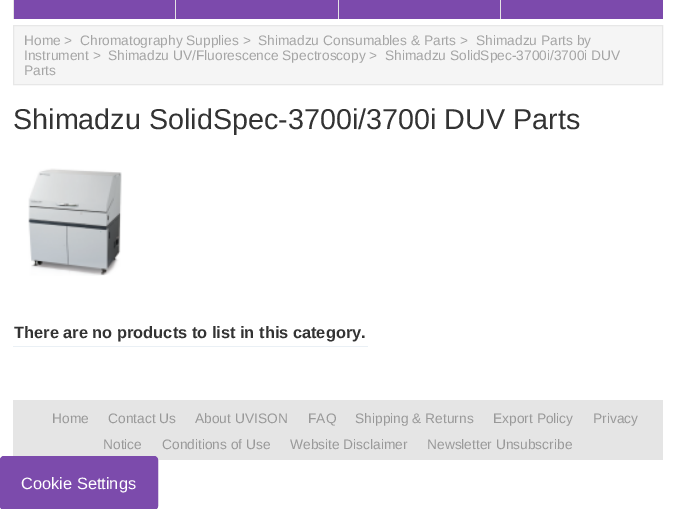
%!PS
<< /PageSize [675 509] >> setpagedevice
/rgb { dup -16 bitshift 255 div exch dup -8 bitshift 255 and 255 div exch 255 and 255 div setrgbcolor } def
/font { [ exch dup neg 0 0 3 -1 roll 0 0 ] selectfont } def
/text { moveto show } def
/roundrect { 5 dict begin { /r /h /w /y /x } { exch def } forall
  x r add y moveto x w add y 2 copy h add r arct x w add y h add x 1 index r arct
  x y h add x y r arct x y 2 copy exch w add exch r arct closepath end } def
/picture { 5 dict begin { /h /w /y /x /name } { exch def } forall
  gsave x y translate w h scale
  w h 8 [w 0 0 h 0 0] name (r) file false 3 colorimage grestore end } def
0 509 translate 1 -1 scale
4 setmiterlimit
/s1 { /LiberationSans-Regular 13.75 font 16#A5A5A5 rgb } def
/s2 { /LiberationSans-Regular 28.75 font 16#333333 rgb } def
/s3 { /LiberationSans-Bold 16.4 font 16#333333 rgb } def
/s4 { /LiberationSans-Regular 13.75 font 16#999999 rgb } def
/s5 { /LiberationSans-Regular 16.4 font 16#FFFFFF rgb } def
16#FFFFFF rgb
0 0 675 509 rectfill
16#7C4AAC rgb
14 0 649 19 rectfill
16#E4E4E4 rgb
13 0 1 19 rectfill
175 0 1 19 rectfill
338 0 1 19 rectfill
500 0 1 19 rectfill
16#F5F5F5 rgb
13.5 25.5 moveto 662.5 25.5 lineto 662.5 84.5 lineto 13.5 84.5 lineto closepath gsave fill grestore
16#E7E7E7 rgb
stroke
s1
(Home >) 24 45 text
(Chromatography Supplies >) 80 45 text
(Shimadzu Consumables & Parts >) 258 45 text
(Shimadzu Parts by) 476 45 text
(Instrument >) 24 60 text
(Shimadzu UV/Fluorescence Spectroscopy >  Shimadzu SolidSpec-3700i/3700i DUV) 108 60 text
(Parts) 24 75 text
s2
(Shimadzu SolidSpec-3700i/3700i DUV Parts) 13 129 text
(pic1.raw) 28 168 94 108 picture
16#EAF0F5 rgb
13 346 355 1 rectfill
s3
(There are no products to list in this category.) 14 338 text
16#E5E5E5 rgb
13 400 650 60 rectfill
s4
(Home) 52 423 text
(Contact Us) 108 423 text
(About UVISON) 195 423 text
(FAQ) 308 423 text
(Shipping & Returns) 355 423 text
(Export Policy) 493 423 text
(Privacy) 593 423 text
(Notice) 103 449 text
(Conditions of Use) 162 449 text
(Website Disclaimer) 290 449 text
(Newsletter Unsubscribe) 427 449 text
16#7C4BAC rgb
0.5 456.5 157 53 3.5 roundrect gsave fill grestore
stroke
s5
(Cookie Settings) 21 489 text
showpage
